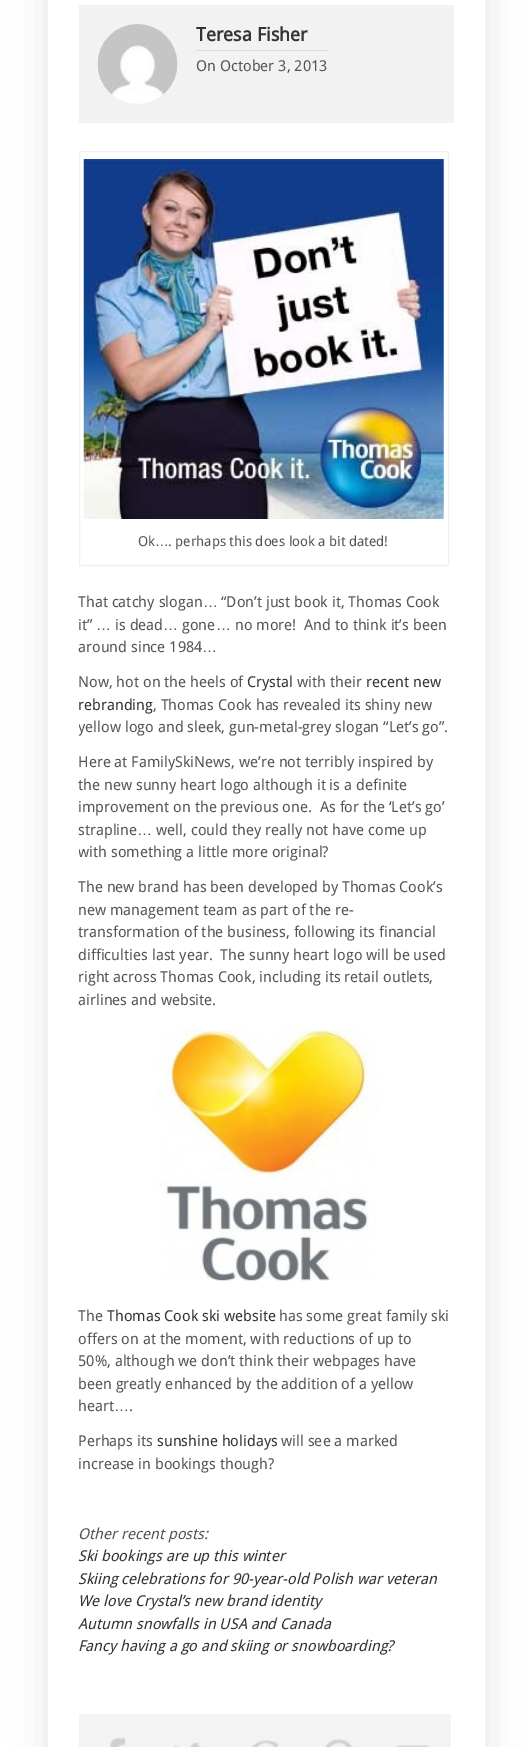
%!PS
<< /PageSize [531 1747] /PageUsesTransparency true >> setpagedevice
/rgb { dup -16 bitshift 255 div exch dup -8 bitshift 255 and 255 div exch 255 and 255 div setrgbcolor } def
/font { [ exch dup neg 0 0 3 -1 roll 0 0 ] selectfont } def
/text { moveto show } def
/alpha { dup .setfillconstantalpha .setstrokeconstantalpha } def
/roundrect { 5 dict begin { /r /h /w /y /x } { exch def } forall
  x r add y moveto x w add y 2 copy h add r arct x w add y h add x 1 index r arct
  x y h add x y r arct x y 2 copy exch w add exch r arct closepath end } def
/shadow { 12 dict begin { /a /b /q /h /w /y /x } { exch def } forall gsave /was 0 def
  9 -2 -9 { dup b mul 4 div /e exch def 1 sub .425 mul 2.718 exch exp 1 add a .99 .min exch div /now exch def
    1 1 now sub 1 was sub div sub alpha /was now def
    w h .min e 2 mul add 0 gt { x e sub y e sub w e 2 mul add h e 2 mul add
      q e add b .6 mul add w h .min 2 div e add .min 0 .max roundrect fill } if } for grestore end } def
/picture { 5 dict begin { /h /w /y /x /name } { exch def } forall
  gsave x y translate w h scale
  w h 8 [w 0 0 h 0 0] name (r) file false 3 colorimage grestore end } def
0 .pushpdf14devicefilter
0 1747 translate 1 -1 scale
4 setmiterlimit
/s1 { /DroidSans-Bold 18.75 font 16#333333 rgb } def
/s2 { /DroidSans-Regular 15 font 16#555555 rgb } def
/s3 { /DroidSans-Regular 13.75 font 16#555555 rgb } def
/s4 { /LiberationSans-Regular 13.75 font 16#555555 rgb } def
/s5 { /LiberationSans-Regular 15 font 16#555555 rgb } def
/s6 { /DroidSans-Regular 15 font 16#333333 rgb } def
/s7 { /DroidSans-Italic 15 font 16#555555 rgb } def
/s8 { /DroidSans-Italic 15 font 16#333333 rgb } def
16#FFFFFF rgb
0 0 531 1747 rectfill
gsave
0 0 moveto 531 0 lineto 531 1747 lineto 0 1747 lineto closepath 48 -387 moveto 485 -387 lineto 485 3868 lineto 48 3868 lineto closepath eoclip newpath
16#000000 rgb
48 -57 437 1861 0 19 0.1 shadow
grestore
16#F2F2F2 rgb
79 5 375 118 rectfill
(pic1.raw) 97 24 81 80 picture
16#DCDCDC rgb
196 50 132 1 rectfill
s1
(Teresa Fisher) 196 41 text
s2
(On October 3, 2013) 196 71 text
16#F0F0F0 rgb
79.5 151.5 369 414 rectstroke
(pic2.raw) 83 159 361 360 picture
s3
(Ok) 138 546 text
s4
(…) 155 546 text
s3
(. perhaps this does look a bit dated!) 168 546 text
s2
(That catchy slogan) 78 607 text
s5
(…) 203 607 text
s2
(“Don’t just book it, Thomas Cook) 221 607 text
(it”) 78 630 text
s5
(…) 96 630 text
s2
(is dead) 115 630 text
s5
(…) 163 630 text
s2
(gone) 182 630 text
s5
(…) 216 630 text
s2
(no more!  And to think it’s been) 235 630 text
(around since 1984) 78 652 text
s5
(…) 202 652 text
s2
(Now, hot on the heels of) 78 687 text
s6
(Crystal) 247 687 text
s2
(with their) 297 687 text
s6
(recent new) 366 687 text
(rebranding) 78 710 text
s2
(, Thomas Cook has revealed its shiny new) 153 710 text
gsave
79 0 375 1670 rectclip
(yellow logo and sleek, gun-metal-grey slogan “Let’s go”.) 78 732 text
grestore
(Here at FamilySkiNews, we’re not terribly inspired by) 78 767 text
(the new sunny heart logo although it is a definite) 78 790 text
(improvement on the previous one.  As for the ‘Let’s go’) 78 812 text
(strapline) 78 835 text
s5
(…) 137 835 text
s2
(well, could they really not have come up) 156 835 text
gsave
79 0 375 1670 rectclip
(with something a little more original?) 78 857 text
grestore
(The new brand has been developed by Thomas Cook’s) 78 892 text
(new management team as part of the re-) 78 915 text
(transformation of the business, following its financial) 78 937 text
(difficulties last year.  The sunny heart logo will be used) 78 960 text
(right across Thomas Cook, including its retail outlets,) 78 982 text
(airlines and website.) 78 1005 text
(pic3.raw) 158 1030 220 251 picture
(The) 78 1321 text
s6
(Thomas Cook ski website) 107 1321 text
s2
(has some great family ski) 279 1321 text
(offers on at the moment, with reductions of up to) 78 1344 text
(50%, although we don’t think their webpages have) 78 1366 text
(been greatly enhanced by the addition of a yellow) 78 1389 text
(heart) 78 1411 text
s5
(…) 114 1411 text
s2
(.) 129 1411 text
(Perhaps its) 78 1446 text
s6
(sunshine holidays) 157 1446 text
s2
(will see a marked) 281 1446 text
(increase in bookings though?) 78 1469 text
s7
(Other recent posts:) 78 1539 text
s8
(Ski bookings are up this winter) 78 1561 text
(Skiing celebrations for 90-year-old Polish war veteran) 78 1584 text
(We love Crystal’s new brand identity) 78 1606 text
(Autumn snowfalls in USA and Canada) 78 1629 text
(Fancy having a go and skiing or snowboarding?) 78 1651 text
16#F3F3F3 rgb
79 1714 372 33 rectfill
(pic4.raw) 110 1737 16 10 picture
(pic5.raw) 174 1742 27 5 picture
(pic6.raw) 251 1740 28 7 picture
(pic7.raw) 325 1739 28 8 picture
(pic8.raw) 395 1745 36 2 picture
.poppdf14devicefilter showpage
